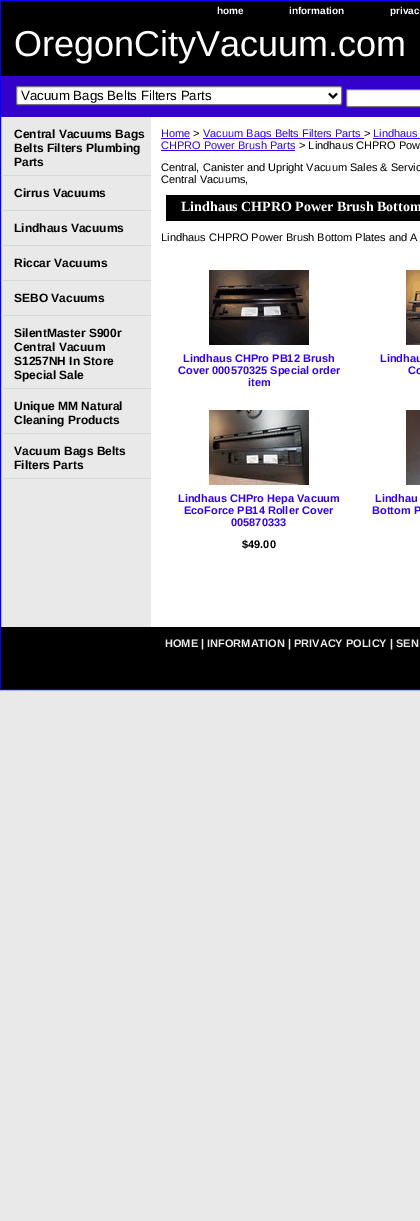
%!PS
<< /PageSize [420 1221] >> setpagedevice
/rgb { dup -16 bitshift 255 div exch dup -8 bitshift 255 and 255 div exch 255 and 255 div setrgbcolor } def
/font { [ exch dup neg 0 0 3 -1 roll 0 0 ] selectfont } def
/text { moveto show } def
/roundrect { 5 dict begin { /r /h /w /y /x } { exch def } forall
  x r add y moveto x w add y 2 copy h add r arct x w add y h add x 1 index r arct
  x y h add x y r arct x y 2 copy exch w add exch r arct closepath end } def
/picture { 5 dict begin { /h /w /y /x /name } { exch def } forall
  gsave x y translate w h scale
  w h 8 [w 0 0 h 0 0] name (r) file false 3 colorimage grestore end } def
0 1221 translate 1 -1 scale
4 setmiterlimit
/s1 { /LiberationSans-Bold 10 font 16#FFFFFF rgb } def
/s2 { /LiberationSans-Regular 36 font 16#FFFFFF rgb } def
/s3 { /LiberationSans-Regular 13.3 font 16#000000 rgb } def
/s4 { /LiberationSans-Bold 12 font 16#000000 rgb } def
/s5 { /LiberationSans-Regular 11 font 16#3300FF rgb } def
/s6 { /LiberationSans-Regular 11 font 16#000000 rgb } def
/s7 { /LiberationSerif-Bold 14 font 16#FFFFFF rgb } def
/s8 { /LiberationSans-Bold 11 font 16#3300FF rgb } def
/s9 { /LiberationSans-Bold 11 font 16#000000 rgb } def
/s10 { /LiberationSans-Bold 11 font 16#E9E9E9 rgb } def
16#E9E9E9 rgb
0 0 420 1221 rectfill
16#FFFFFF rgb
151 117 269 510 rectfill
16#0000FF rgb
0.5 0.5 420 689 rectstroke
16#000000 rgb
1 1 419 75 rectfill
s1
(home) 217 14 text
(information) 289 14 text
(privac) 390 14 text
s2
(OregonCityVacuum.com) 14 56 text
16#3300CC rgb
1 76 419 41 rectfill
16#FFFFFF rgb
16.5 86.5 325 18 1.5 roundrect gsave fill grestore
16#767676 rgb
stroke
16#000000 rgb
2 setlinewidth
329 93.5 moveto 333 97.5 lineto 337 93.5 lineto stroke
s3
(Vacuum Bags Belts Filters Parts) 21 100 text
16#FFFFFF rgb
346.5 89.5 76 17 1.5 roundrect gsave fill grestore
16#767676 rgb
1 setlinewidth
stroke
16#D6D8D3 rgb
1 175 150 1 rectfill
s4
(Central Vacuums Bags) 14 138 text
(Belts Filters Plumbing) 14 152 text
(Parts) 14 166 text
16#D6D8D3 rgb
1 210 150 1 rectfill
s4
(Cirrus Vacuums) 14 197 text
16#D6D8D3 rgb
1 245 150 1 rectfill
s4
(Lindhaus Vacuums) 14 232 text
16#D6D8D3 rgb
1 280 150 1 rectfill
s4
(Riccar Vacuums) 14 267 text
16#D6D8D3 rgb
1 315 150 1 rectfill
s4
(SEBO Vacuums) 14 302 text
16#D6D8D3 rgb
1 388 150 1 rectfill
s4
(SilentMaster S900r) 14 337 text
(Central Vacuum) 14 351 text
(S1257NH In Store) 14 365 text
(Special Sale) 14 379 text
16#D6D8D3 rgb
1 433 150 1 rectfill
s4
(Unique MM Natural) 14 410 text
(Cleaning Products) 14 424 text
16#D6D8D3 rgb
1 478 150 1 rectfill
s4
(Vacuum Bags Belts) 14 455 text
(Filters Parts) 14 469 text
s5
(Home) 161 137 text
161 138 29 1 rectfill
s6
(>) 193 137 text
16#3300FF rgb
203 138 161 1 rectfill
(Vacuum Bags Belts Filters Parts) 203 137 text
s6
(>) 364 137 text
s5
(Lindhaus) 373 137 text
373 138 47 1 rectfill
(CHPRO Power Brush Parts) 161 149 text
161 150 134 1 rectfill
s6
(> Lindhaus CHPRO Pow) 299 149 text
(Central, Canister and Upright Vacuum Sales & Servic) 161 171 text
(Central Vacuums,) 161 183 text
166 195 254 26 rectfill
s7
(Lindhaus CHPRO Power Brush Bottom) 181 211 text
s6
(Lindhaus CHPRO Power Brush Bottom Plates and A) 161 241 text
(pic1.raw) 209 270 100 75 picture
s8
(Lindhaus CHPro PB12 Brush) 183 362 text
(Cover 000570325 Special order) 178 374 text
(item) 248 386 text
(pic2.raw) 406 270 14 75 picture
(Lindhau) 380 362 text
(Co) 408 374 text
(pic3.raw) 209 410 100 75 picture
(Lindhaus CHPro Hepa Vacuum) 178 502 text
(EcoForce PB14 Roller Cover) 184 514 text
(005870333) 231 526 text
s9
($49.00) 242 548 text
(pic4.raw) 406 410 14 75 picture
s8
(Lindhau) 375 502 text
(Bottom P) 372 514 text
16#000000 rgb
1 627 419 62 rectfill
s10
(HOME | INFORMATION | PRIVACY POLICY | SEN) 165 647 text
showpage
